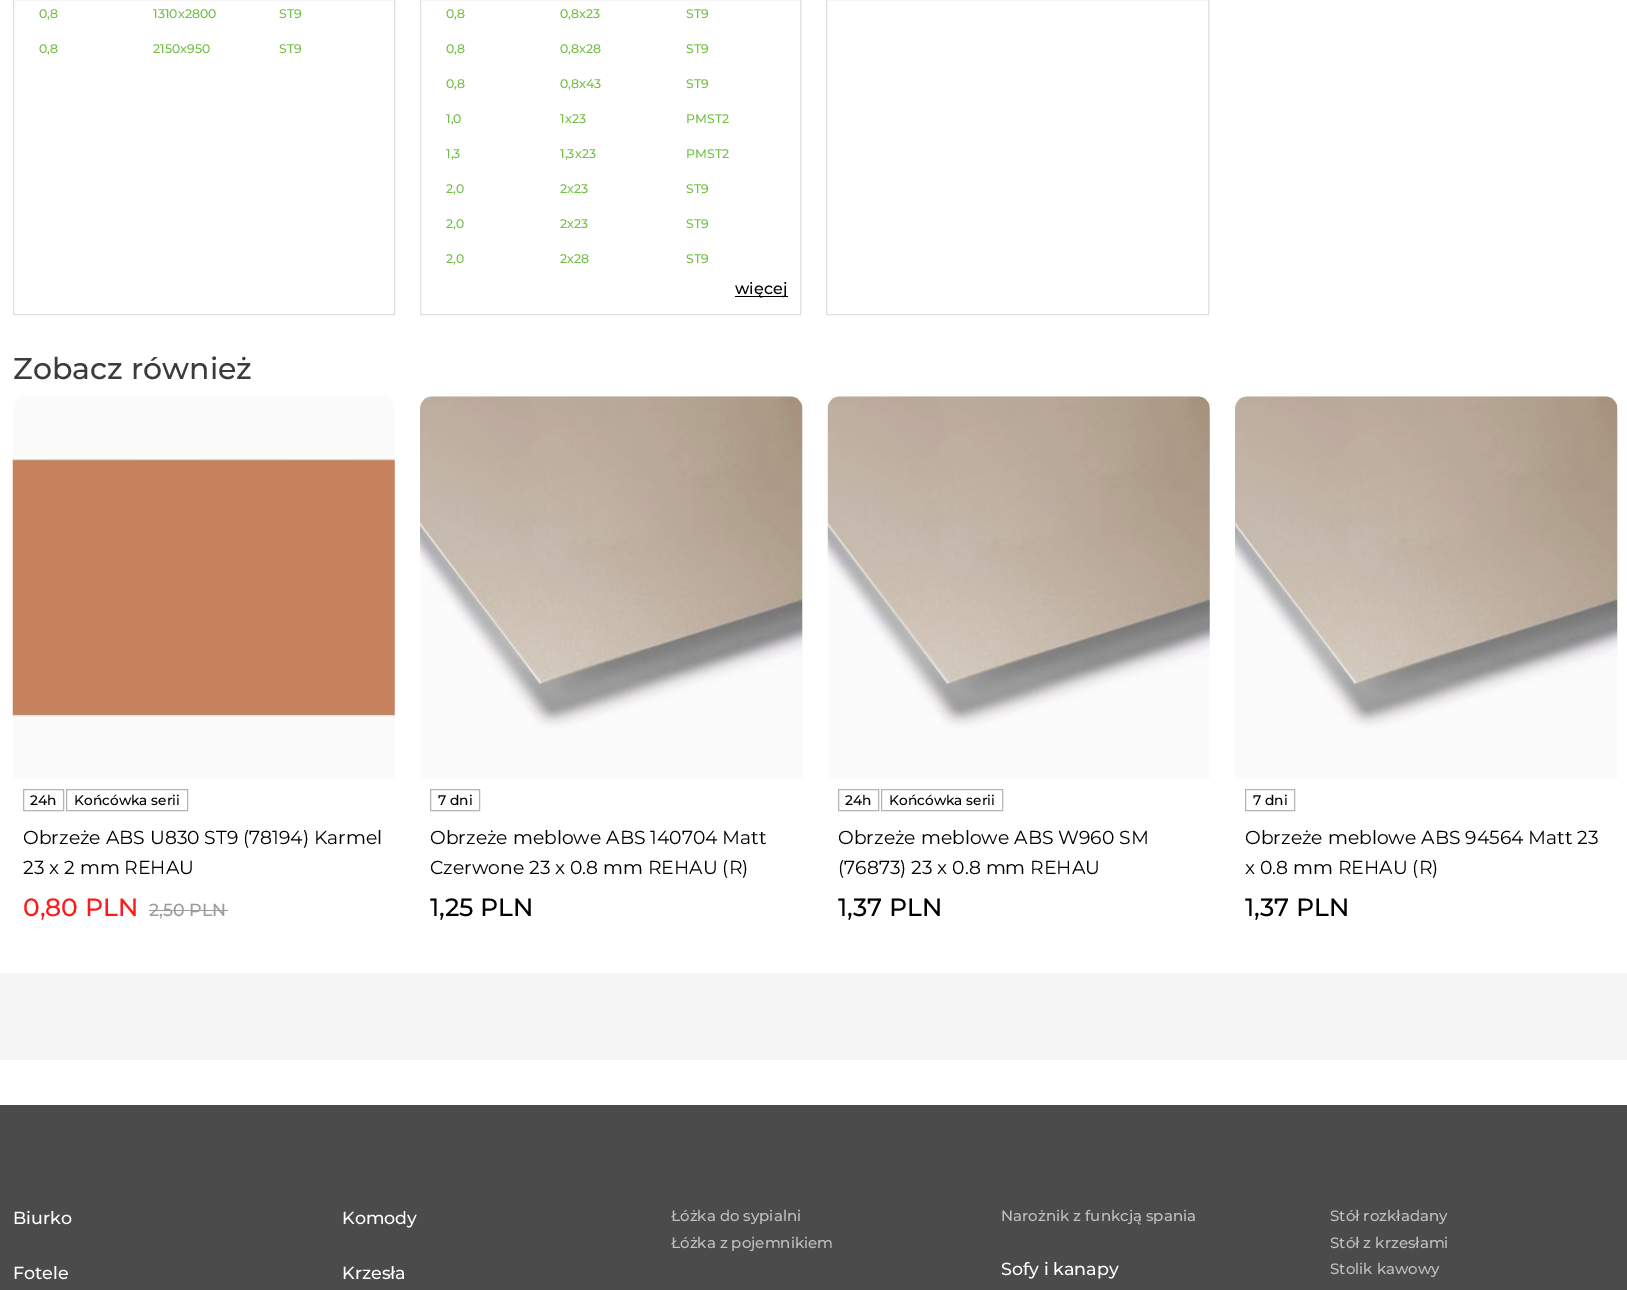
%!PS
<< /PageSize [1627 1290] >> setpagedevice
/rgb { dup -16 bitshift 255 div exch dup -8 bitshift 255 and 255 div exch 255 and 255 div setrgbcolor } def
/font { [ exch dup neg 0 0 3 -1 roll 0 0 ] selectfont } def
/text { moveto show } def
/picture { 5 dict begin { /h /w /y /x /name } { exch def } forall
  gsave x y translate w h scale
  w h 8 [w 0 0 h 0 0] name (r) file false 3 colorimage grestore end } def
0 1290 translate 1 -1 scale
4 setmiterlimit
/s1 { /Montserrat-Medium 12.5 font 16#72BF44 rgb } def
/s2 { /Montserrat-Medium 16 font 16#000000 rgb } def
/s3 { /Montserrat-Medium 30 font 16#393C39 rgb } def
/s4 { /Montserrat-Medium 13.75 font 16#000000 rgb } def
/s5 { /Montserrat-Regular 18.75 font 16#000000 rgb } def
/s6 { /Montserrat-Medium 25 font 16#FF1A1A rgb } def
/s7 { /Montserrat-Medium 17.5 font 16#9C9C9C rgb } def
/s8 { /Montserrat-Medium 25 font 16#000000 rgb } def
/s9 { /Montserrat-Medium 17.5 font 16#FFFFFF rgb } def
/s10 { /Montserrat-Medium 15 font 16#BFBFBF rgb } def
16#FFFFFF rgb
0 0 1627 1290 rectfill
16#DFDFDF rgb
13.5 -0.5 381 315 rectstroke
s1
(0,8) 39 18 text
(1310x2800) 153 18 text
(ST9) 279 18 text
(0,8) 39 53 text
(2150x950) 153 53 text
(ST9) 279 53 text
16#DFDFDF rgb
420.5 -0.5 380 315 rectstroke
s1
(0,8) 446 18 text
(0,8x23) 560 18 text
(ST9) 686 18 text
(0,8) 446 53 text
(0,8x28) 560 53 text
(ST9) 686 53 text
(0,8) 446 88 text
(0,8x43) 560 88 text
(ST9) 686 88 text
(1,0) 446 123 text
(1x23) 560 123 text
(PMST2) 686 123 text
(1,3) 446 158 text
(1,3x23) 560 158 text
(PMST2) 686 158 text
(2,0) 446 193 text
(2x23) 560 193 text
(ST9) 686 193 text
(2,0) 446 228 text
(2x23) 560 228 text
(ST9) 686 228 text
(2,0) 446 263 text
(2x28) 560 263 text
(ST9) 686 263 text
16#000000 rgb
735 296 53 1 rectfill
s2
(więcej) 735 294 text
16#DFDFDF rgb
826.5 -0.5 382 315 rectstroke
s3
(Zobacz również) 13 379 text
16#FBFBFB rgb
26 396 moveto 382 396 lineto 389 396 395 402 395 409 curveto 395 779 lineto 13 779 lineto 13 409 lineto 13 402 19 396 26 396 curveto closepath fill
(pic1.raw) 12 458 383 260 picture
16#B4B4B4 rgb
23.5 789.5 40 21 rectstroke
s4
(24h) 30 805 text
16#B4B4B4 rgb
66.5 789.5 121 21 rectstroke
s4
(Końcówka serii) 74 805 text
s5
(Obrzeże ABS U830 ST9 \(78194\) Karmel) 23 844 text
(23 x 2 mm REHAU) 23 874 text
s6
(0,80 PLN) 23 916 text
s7
(2,50 PLN) 149 916 text
149 910 79 1 rectfill
16#FBFBFB rgb
433 396 moveto 790 396 lineto 797 396 803 402 803 409 curveto 803 779 lineto 420 779 lineto 420 409 lineto 420 402 426 396 433 396 curveto closepath fill
(pic2.raw) 420 396 383 332 picture
16#B4B4B4 rgb
430.5 789.5 49 21 rectstroke
s4
(7 dni) 438 805 text
s5
(Obrzeże meblowe ABS 140704 Matt) 430 844 text
(Czerwone 23 x 0.8 mm REHAU \(R\)) 430 874 text
s8
(1,25 PLN) 430 916 text
16#FBFBFB rgb
841 396 moveto 1197 396 lineto 1204 396 1210 402 1210 409 curveto 1210 779 lineto 828 779 lineto 828 409 lineto 828 402 834 396 841 396 curveto closepath fill
(pic3.raw) 827 396 383 332 picture
16#B4B4B4 rgb
838.5 789.5 40 21 rectstroke
s4
(24h) 845 805 text
16#B4B4B4 rgb
881.5 789.5 121 21 rectstroke
s4
(Końcówka serii) 889 805 text
s5
(Obrzeże meblowe ABS W960 SM) 838 844 text
(\(76873\) 23 x 0.8 mm REHAU) 838 874 text
s8
(1,37 PLN) 838 916 text
16#FBFBFB rgb
1248 396 moveto 1605 396 lineto 1612 396 1618 402 1618 409 curveto 1618 779 lineto 1235 779 lineto 1235 409 lineto 1235 402 1241 396 1248 396 curveto closepath fill
(pic2.raw) 1235 396 383 332 picture
16#B4B4B4 rgb
1245.5 789.5 49 21 rectstroke
s4
(7 dni) 1253 805 text
s5
(Obrzeże meblowe ABS 94564 Matt 23) 1245 844 text
(x 0.8 mm REHAU \(R\)) 1245 874 text
s8
(1,37 PLN) 1245 916 text
16#F5F5F5 rgb
0 973 1627 87 rectfill
16#4B4B4B rgb
0 1105 1627 185 rectfill
s9
(Biurko) 13 1224 text
(Komody) 342 1224 text
s10
(Łóżka do sypialni) 671 1221 text
(Łóżka z pojemnikiem) 671 1248 text
(Narożnik z funkcją spania) 1001 1221 text
(Stół rozkładany) 1330 1221 text
(Stół z krzesłami) 1330 1248 text
(Stolik kawowy) 1330 1274 text
s9
(Fotele) 13 1279 text
(Krzesła) 342 1279 text
(Sofy i kanapy) 1001 1275 text
showpage
